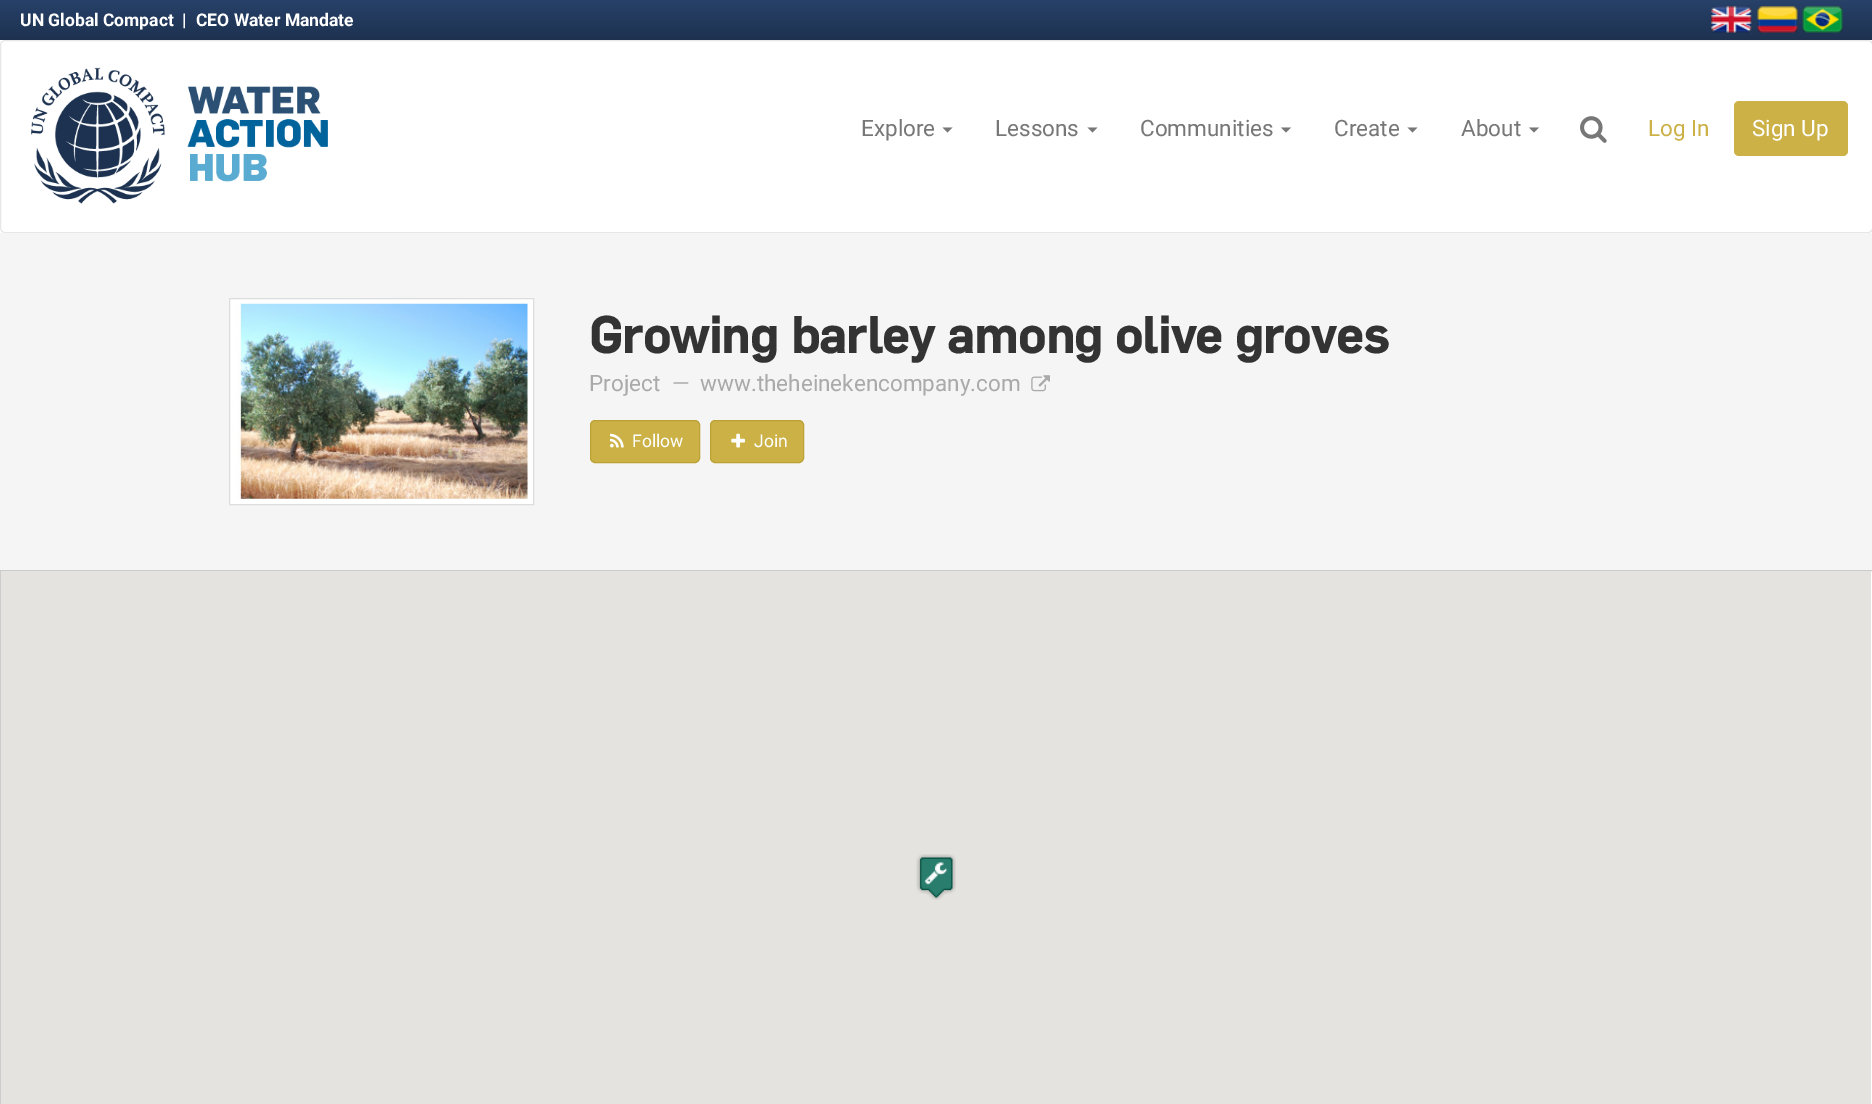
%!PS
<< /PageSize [1872 1104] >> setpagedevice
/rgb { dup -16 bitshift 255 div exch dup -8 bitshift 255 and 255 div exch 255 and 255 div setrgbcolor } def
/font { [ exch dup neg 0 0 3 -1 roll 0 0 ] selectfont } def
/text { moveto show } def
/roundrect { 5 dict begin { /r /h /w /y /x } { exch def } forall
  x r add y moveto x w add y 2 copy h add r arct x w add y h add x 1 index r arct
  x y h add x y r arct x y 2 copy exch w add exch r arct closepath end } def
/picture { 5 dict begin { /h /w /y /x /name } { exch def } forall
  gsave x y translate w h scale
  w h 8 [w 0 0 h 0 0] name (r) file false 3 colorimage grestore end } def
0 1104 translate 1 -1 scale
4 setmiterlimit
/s1 { /Roboto-Bold 17.5 font 16#FFFFFF rgb } def
/s2 { /Roboto-Regular 22.5 font 16#777777 rgb } def
/s3 { /Roboto-Regular 22.5 font 16#CCB146 rgb } def
/s4 { /Roboto-Regular 22.5 font 16#FFFFFF rgb } def
/s5 { /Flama-Bold 50 font 16#333333 rgb } def
/s6 { /Roboto-Regular 22.5 font 16#AAAAAA rgb } def
/s7 { /Roboto-Regular 17.5 font 16#FFFFFF rgb } def
16#FFFFFF rgb
0 0 1872 1104 rectfill
gsave 0 0 moveto 1872 0 lineto 1872 40 lineto 0 40 lineto closepath clip newpath
<< /ShadingType 2 /ColorSpace /DeviceRGB /Coords [936 40 936 0] /Extend [true true] /Function << /FunctionType 2 /Domain [0 1] /C0 [0.118 0.196 0.314] /C1 [0.153 0.255 0.412] /N 1 >> >> shfill grestore
s1
(UN Global Compact) 20 26 text
(|) 182 26 text
(CEO Water Mandate) 196 26 text
(pic1.raw) 1711 6 41 27 picture
(pic2.raw) 1757 6 41 27 picture
(pic3.raw) 1802 6 41 27 picture
16#E7E7E7 rgb
0.5 40.5 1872 192 4.5 roundrect stroke
(pic4.raw) 31 67 297 137 picture
s2
(Explore) 861 136 text
942.5 127.5 moveto 952.5 127.5 lineto 947.5 132.5 lineto closepath fill
(Lessons) 995 136 text
1087.5 127.5 moveto 1097.5 127.5 lineto 1092.5 132.5 lineto closepath fill
(Communities) 1140 136 text
1281 127.5 moveto 1291 127.5 lineto 1286 132.5 lineto closepath fill
(Create) 1334 136 text
1407.5 127.5 moveto 1417.5 127.5 lineto 1412.5 132.5 lineto closepath fill
(About) 1461 136 text
1529 127.5 moveto 1539 127.5 lineto 1534 132.5 lineto closepath fill
(pic5.raw) 1580 116 27 27 picture
s3
(Log In) 1648 136 text
1734 101 114 55 5 roundrect fill
s4
(Sign Up) 1752 136 text
16#F5F5F5 rgb
0 233 1872 337 rectfill
16#FFFFFF rgb
229.5 298.5 moveto 533.5 298.5 lineto 533.5 504.5 lineto 229.5 504.5 lineto closepath gsave fill grestore
16#DDDDDD rgb
stroke
(pic6.raw) 236 303 292 196 picture
s5
(Growing barley among olive groves) 589 353 text
s6
(Project) 589 391 text
(—) 672 391 text
(www.theheinekencompany.com) 700 391 text
(pic7.raw) 1031 375 19 17 picture
16#CCB146 rgb
590.5 420.5 109 42 4.5 roundrect gsave fill grestore
16#BCA134 rgb
stroke
(pic8.raw) 610 433 14 15 picture
s7
(Follow) 632 447 text
16#CCB146 rgb
710.5 420.5 93 42 4.5 roundrect gsave fill grestore
16#BCA134 rgb
stroke
(pic9.raw) 731 433 14 15 picture
s7
(Join) 754 447 text
16#CCCCCC rgb
0.5 570.5 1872 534 rectstroke
16#E5E3DF rgb
1 571 1870 533 rectfill
(pic10.raw) 916 854 40 46 picture
showpage
